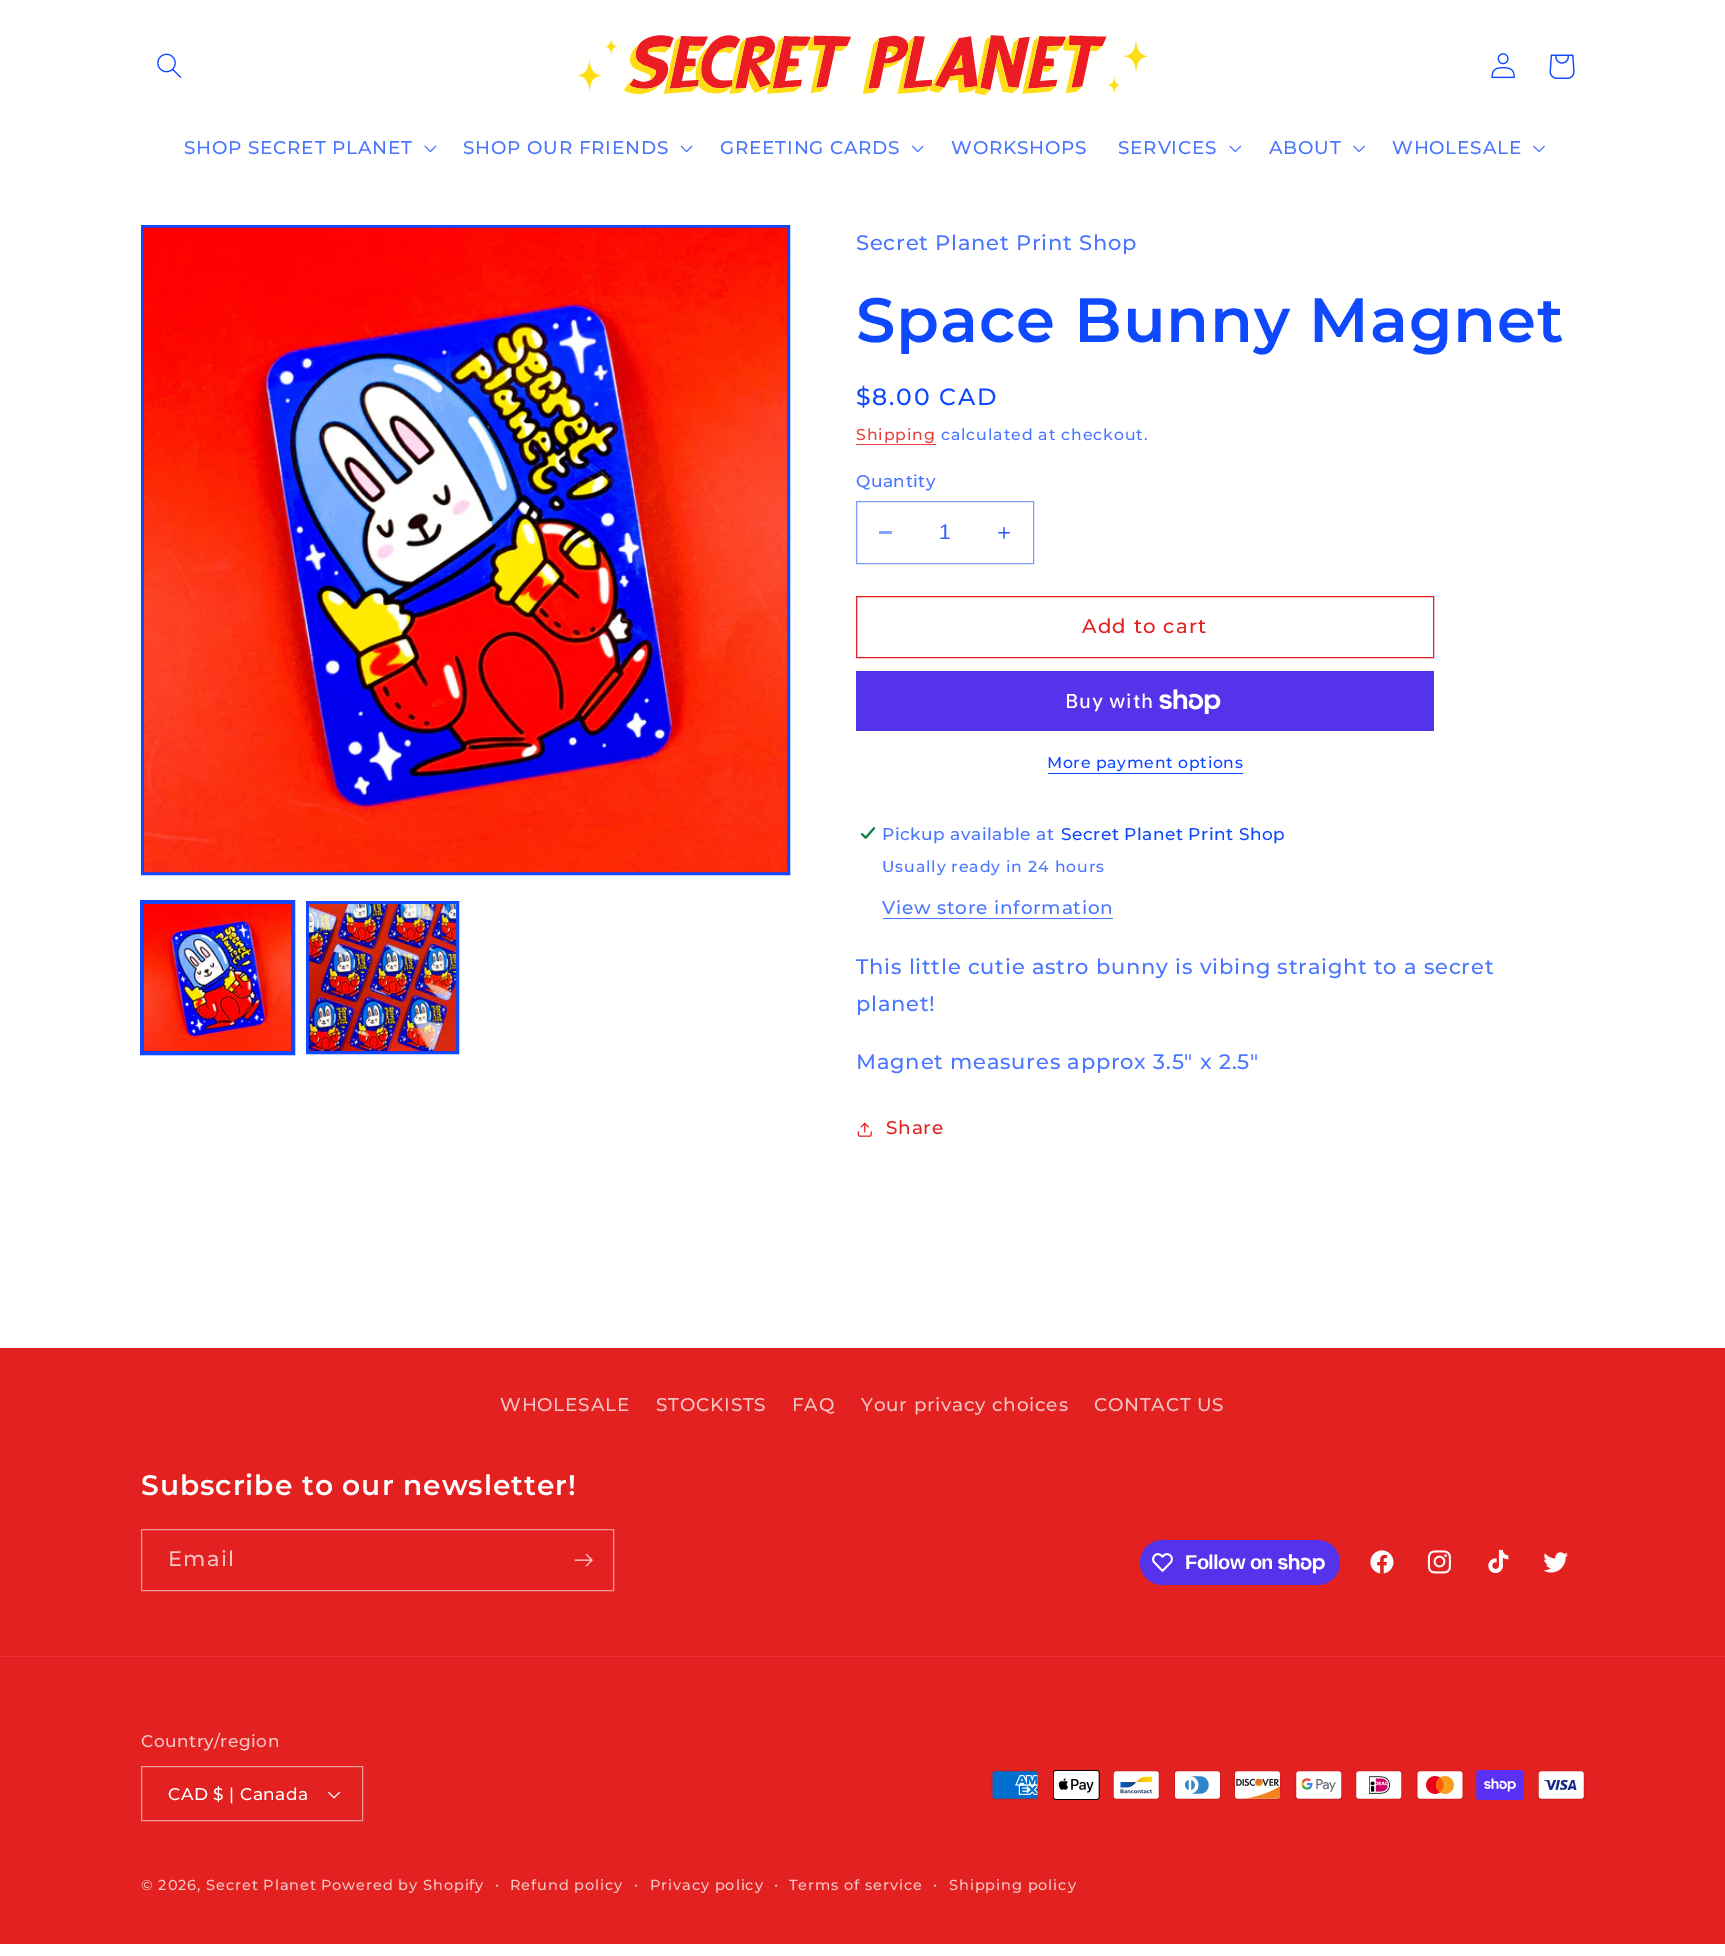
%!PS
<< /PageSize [1725 1956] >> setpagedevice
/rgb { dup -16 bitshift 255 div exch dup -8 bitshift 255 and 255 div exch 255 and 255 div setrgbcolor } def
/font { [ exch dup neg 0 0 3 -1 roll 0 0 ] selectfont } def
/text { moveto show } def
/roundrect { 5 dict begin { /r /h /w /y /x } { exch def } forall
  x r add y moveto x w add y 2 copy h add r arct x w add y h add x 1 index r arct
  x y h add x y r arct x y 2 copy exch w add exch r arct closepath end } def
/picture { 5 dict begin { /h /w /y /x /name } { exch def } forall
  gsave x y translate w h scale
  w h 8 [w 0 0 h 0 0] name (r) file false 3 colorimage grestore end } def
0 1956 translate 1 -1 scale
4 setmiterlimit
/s1 { /LiberationSans-Regular 21 font 16#3263FF rgb } def
16#FFFFFF rgb
0 0 1725 1956 rectfill
(pic1.raw) 157 53 25 25 picture
(pic2.raw) 577 35 572 61 picture
(pic3.raw) 1491 53 24 26 picture
(pic4.raw) 1549 54 26 25 picture
/Montserrat-Medium 18.4 font
16#4A76FF rgb
184 154 moveto 0.8 0 (SHOP SECRET PLANET) ashow
(pic5.raw) 424 145 13 8 picture
463 154 moveto 0.8 0 (SHOP OUR FRIENDS) ashow
(pic6.raw) 680 145 13 8 picture
720 154 moveto 0.8 0 (GREETING CARDS) ashow
(pic7.raw) 912 145 12 8 picture
951 154 moveto 0.8 0 (WORKSHOPS) ashow
1118 154 moveto 0.8 0 (SERVICES) ashow
(pic5.raw) 1229 145 13 8 picture
1269 154 moveto 0.8 0 (ABOUT) ashow
(pic8.raw) 1353 145 12 8 picture
1392 154 moveto 0.8 0 (WHOLESALE) ashow
(pic8.raw) 1533 145 12 8 picture
16#0E48FF rgb
3 setlinewidth
142.5 226.5 646 647 rectstroke
(pic9.raw) 143 227 645 646 picture
1 setlinewidth
140.5 900.5 154 154 rectstroke
3 setlinewidth
142.5 902.5 150 150 rectstroke
(pic10.raw) 143 903 149 149 picture
307.5 902.5 150 150 rectstroke
(pic11.raw) 308 903 149 149 picture
/Montserrat-Medium 21 font
16#4A76FF rgb
856 250 moveto 0.8 0 (Secret Planet Print Shop) ashow
/Montserrat-SemiBold 62.5 font
16#0E48FF rgb
856 342 moveto 0.95 0 (Space Bunny Magnet) ashow
/Montserrat-Medium 23.5 font
856 405 moveto 1.75 0 ($8.00 CAD) ashow
/Montserrat-Medium 15.75 font
16#E64241 rgb
856 440 moveto 0.9 0 (Shipping) ashow
856 444 80 1 rectfill
16#4A76FF rgb
941 440 moveto 0.9 0 (calculated at checkout.) ashow
/Montserrat-Medium 17 font
856 487 moveto 0.5 0 (Quantity) ashow
16#87A4FF rgb
879 531 13 3 rectfill
(pic12.raw) 998 527 12 12 picture
16#7A9AFF rgb
1 setlinewidth
856.5 501.5 177 62 rectstroke
s1
(1) 939 539 text
16#E22120 rgb
856.5 596.5 577 61 rectstroke
/Montserrat-Medium 19.75 font
1082 633 moveto 1.25 0 (Add to cart) ashow
16#5433EB rgb
856 671 578 60 rectfill
/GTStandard-Medium 20 font
16#FFFFFF rgb
1065 708 moveto 0.8 0 (Buy with) ashow
(pic13.raw) 1159 689 62 25 picture
/Montserrat-Medium 15.75 font
16#0E48FF rgb
1047 768 moveto 0.7 0 (More payment options) ashow
1048 773 195 1 rectfill
(pic14.raw) 860 826 16 14 picture
/Montserrat-Medium 17 font
16#4A76FF rgb
882 840 moveto 0.5 0 (Pickup available at) ashow
16#0E48FF rgb
1061 840 moveto 0.5 0 (Secret Planet Print Shop) ashow
/Montserrat-Medium 15.75 font
16#4A76FF rgb
882 872 moveto 0.9 0 (Usually ready in 24 hours) ashow
/Montserrat-Medium 18.4 font
882 914 moveto 0.8 0 (View store information) ashow
883 918 230 1 rectfill
/Montserrat-Medium 21 font
856 974 moveto 0.8 0 (This little cutie astro bunny is vibing straight to a secret) ashow
856 1011 moveto 0.8 0 (planet!) ashow
856 1069 moveto 0.8 0 (Magnet measures approx 3.5" x 2.5") ashow
(pic15.raw) 857 1122 15 15 picture
/Montserrat-Medium 18.4 font
16#E22120 rgb
886 1134 moveto 0.8 0 (Share) ashow
0 1348 1725 596 rectfill
16#F6C5C5 rgb
500 1411 moveto 0.8 0 (WHOLESALE) ashow
656 1411 moveto 0.8 0 (STOCKISTS) ashow
792 1411 moveto 0.8 0 (FAQ) ashow
861 1411 moveto 0.8 0 (Your privacy choices) ashow
1094 1411 moveto 0.8 0 (CONTACT US) ashow
/Montserrat-SemiBold 28.1 font
16#FFFFFF rgb
141 1495 moveto 0.95 0 (Subscribe to our newsletter!) ashow
16#F09999 rgb
141.5 1529.5 472 61 rectstroke
/Montserrat-Medium 21 font
16#F6C5C5 rgb
168 1566 moveto 1.25 0 (Email) ashow
(pic16.raw) 574 1553 19 14 picture
16#5433EB rgb
1140 1540 200 45 22.5 roundrect fill
(pic17.raw) 1152 1553 21 19 picture
/LiberationSans-Bold 20 font
16#FFFFFF rgb
1185 1569 moveto -0.6 0 (Follow on) ashow
(pic18.raw) 1278 1554 47 20 picture
(pic19.raw) 1370 1550 24 24 picture
(pic20.raw) 1427 1550 24 24 picture
(pic21.raw) 1488 1549 21 25 picture
(pic22.raw) 1543 1552 25 21 picture
16#E43332 rgb
0 1656 1725 1 rectfill
/Montserrat-Medium 17 font
16#F6C5C5 rgb
141 1747 moveto 0.5 0 (Country/region) ashow
(pic23.raw) 328 1792 12 7 picture
16#F09999 rgb
141.5 1766.5 221 54 rectstroke
16#FFFFFF rgb
168 1800 moveto 0.5 0 (CAD $ | Canada) ashow
(pic24.raw) 991 1770 48 30 picture
(pic25.raw) 1053 1770 47 30 picture
(pic26.raw) 1113 1770 47 30 picture
(pic27.raw) 1174 1770 47 30 picture
(pic28.raw) 1234 1770 47 30 picture
(pic29.raw) 1295 1770 48 30 picture
(pic30.raw) 1355 1770 48 30 picture
(pic31.raw) 1416 1770 48 30 picture
(pic32.raw) 1476 1770 48 30 picture
(pic33.raw) 1538 1770 47 30 picture
/Montserrat-Medium 14.5 font
16#F6C5C5 rgb
141 1890 moveto 0.9 0 (© 2026, Secret Planet) ashow
321 1890 moveto 0.9 0 (Powered by Shopify) ashow
/Montserrat-Medium 15.75 font
495 1890 moveto 0.9 0 (·) ashow
/Montserrat-Medium 14.5 font
510 1890 moveto 0.9 0 (Refund policy) ashow
/Montserrat-Medium 15.75 font
634 1890 moveto 0.9 0 (·) ashow
/Montserrat-Medium 14.5 font
650 1890 moveto 0.9 0 (Privacy policy) ashow
/Montserrat-Medium 15.75 font
774 1890 moveto 0.9 0 (·) ashow
/Montserrat-Medium 14.5 font
789 1890 moveto 0.9 0 (Terms of service) ashow
/Montserrat-Medium 15.75 font
933 1890 moveto 0.9 0 (·) ashow
/Montserrat-Medium 14.5 font
949 1890 moveto 0.9 0 (Shipping policy) ashow
showpage
